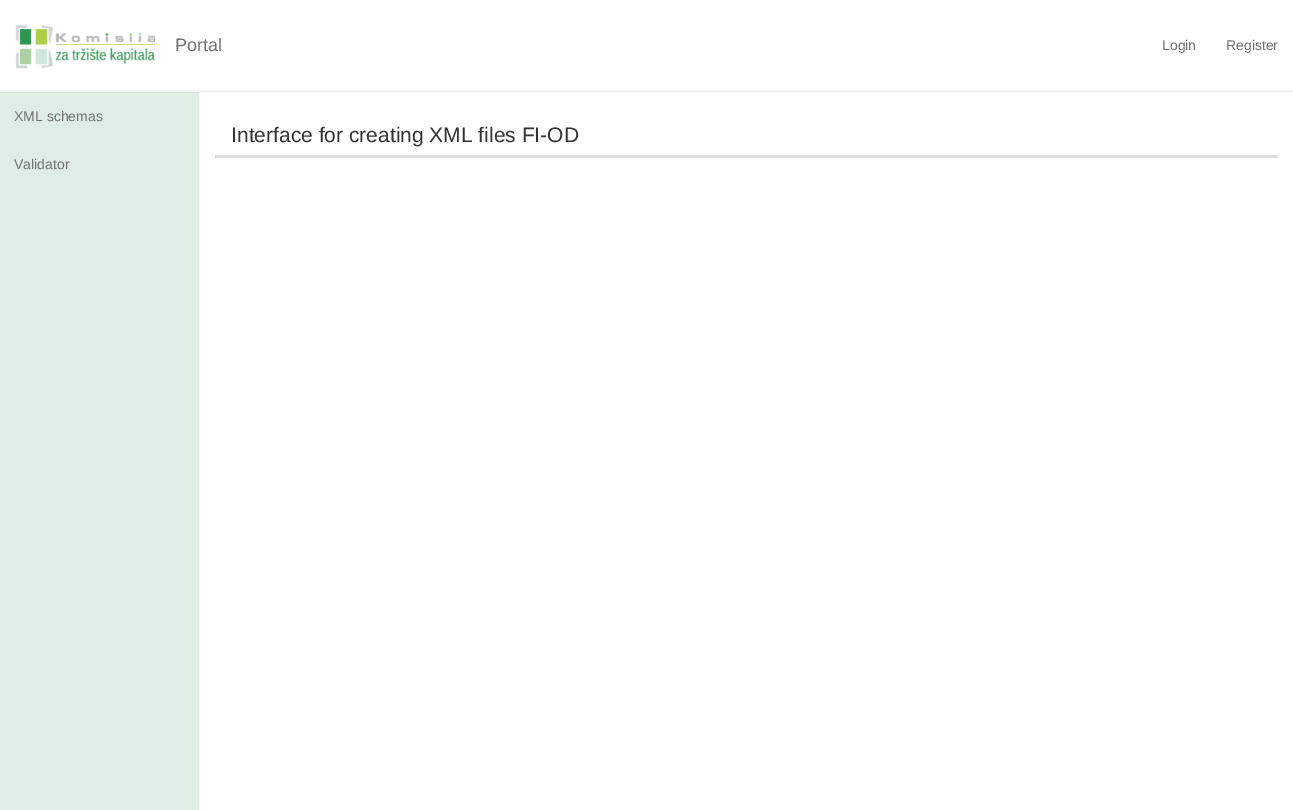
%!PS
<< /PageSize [1293 810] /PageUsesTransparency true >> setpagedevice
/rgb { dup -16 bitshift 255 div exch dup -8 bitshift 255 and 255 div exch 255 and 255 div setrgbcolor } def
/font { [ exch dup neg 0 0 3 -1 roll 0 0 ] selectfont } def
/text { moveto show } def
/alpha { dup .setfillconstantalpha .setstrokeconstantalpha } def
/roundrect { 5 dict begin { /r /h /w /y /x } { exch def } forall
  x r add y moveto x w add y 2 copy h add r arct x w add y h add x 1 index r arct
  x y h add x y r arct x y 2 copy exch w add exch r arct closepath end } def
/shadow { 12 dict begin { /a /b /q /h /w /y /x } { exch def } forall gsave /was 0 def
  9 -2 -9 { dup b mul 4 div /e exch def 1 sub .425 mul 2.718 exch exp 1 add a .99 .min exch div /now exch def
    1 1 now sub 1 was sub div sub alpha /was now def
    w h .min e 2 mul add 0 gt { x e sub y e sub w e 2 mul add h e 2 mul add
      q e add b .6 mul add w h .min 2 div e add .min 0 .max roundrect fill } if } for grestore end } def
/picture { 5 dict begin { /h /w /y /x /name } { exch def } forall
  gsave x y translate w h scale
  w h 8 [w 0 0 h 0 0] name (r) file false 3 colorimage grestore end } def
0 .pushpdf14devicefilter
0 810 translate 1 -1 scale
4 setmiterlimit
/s1 { /LiberationSans-Regular 18 font 16#717171 rgb } def
/s2 { /LiberationSans-Regular 14 font 16#717171 rgb } def
/s3 { /LiberationSans-Regular 21 font 16#333333 rgb } def
16#FFFFFF rgb
0 0 1293 810 rectfill
16#DFEDE5 rgb
0 92 199 718 rectfill
16#F5F5F5 rgb
199 92 1 718 rectfill
gsave
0 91 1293 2 rectclip
16#000000 rgb
0 1 1293 91 0 1.5 0.07 shadow
grestore
16#F2F2F2 rgb
0 90 1293 1 rectfill
(pic1.raw) 15 25 140 44 picture
s1
(Portal) 175 51 text
s2
(Login) 1162 50 text
(Register) 1226 50 text
(XML schemas) 14 121 text
(Validator) 14 169 text
16#DDDDDD rgb
215 155 1063 3 rectfill
s3
(Interface for creating XML files FI-OD) 231 142 text
.poppdf14devicefilter showpage
